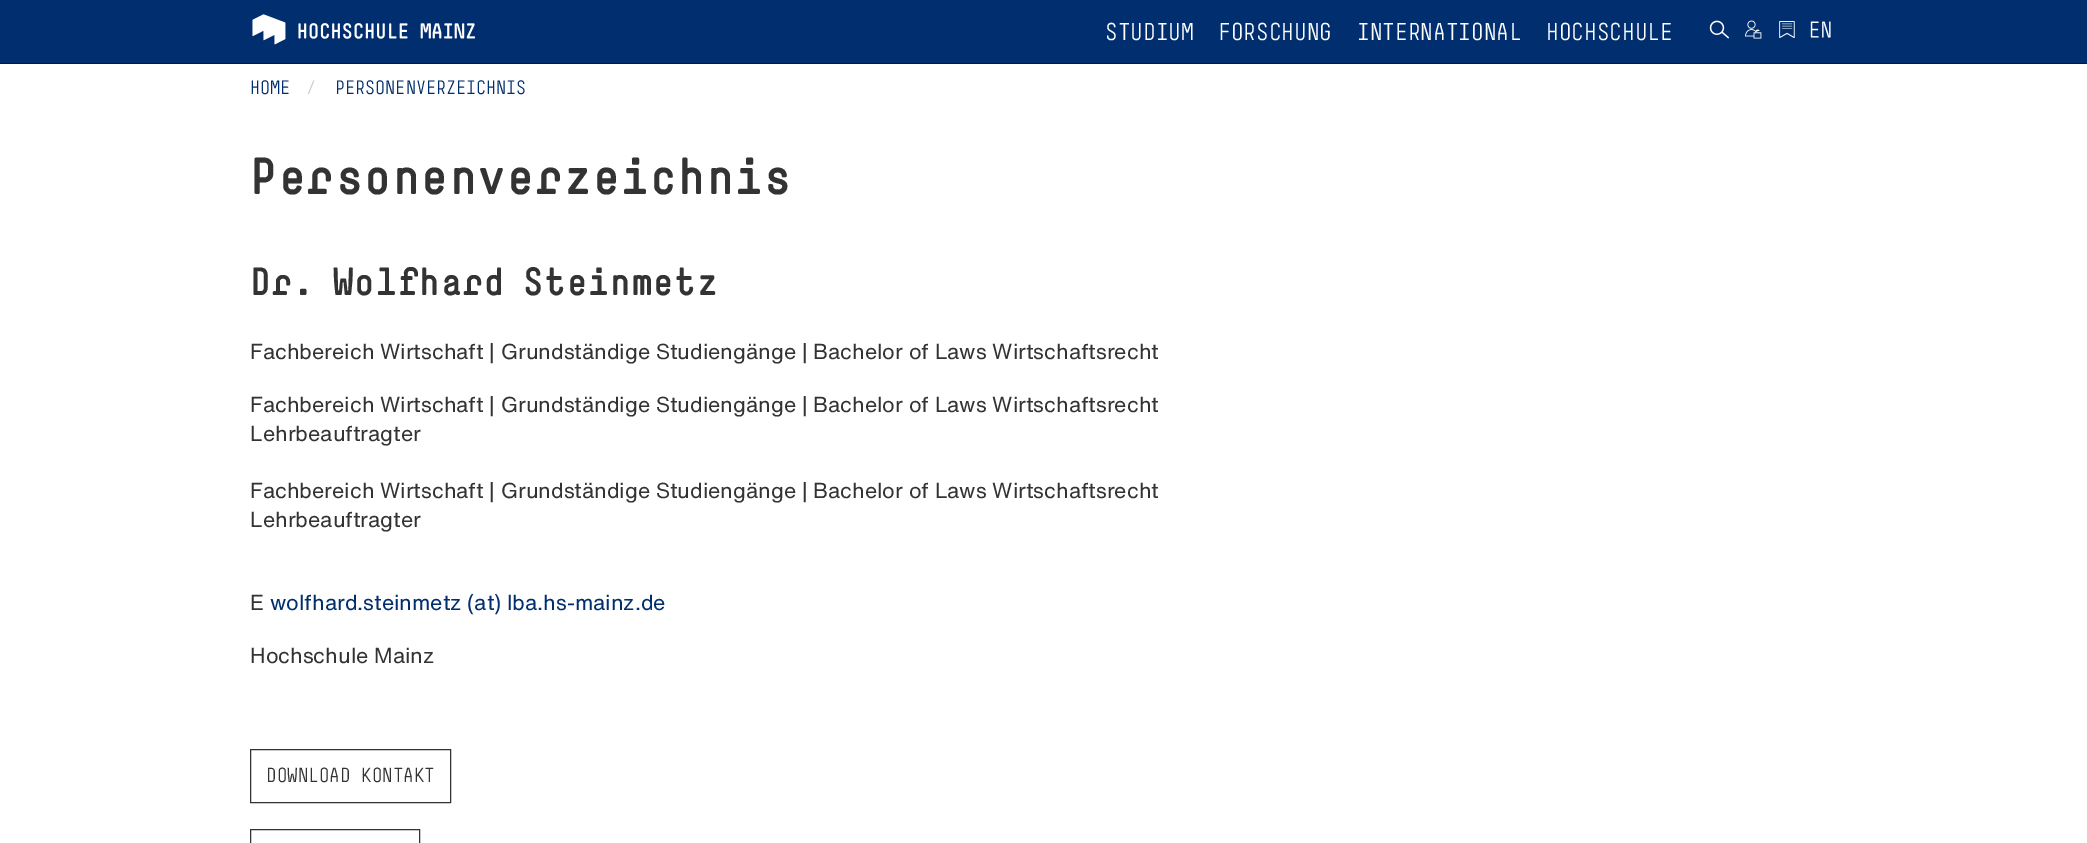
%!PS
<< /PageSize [2087 843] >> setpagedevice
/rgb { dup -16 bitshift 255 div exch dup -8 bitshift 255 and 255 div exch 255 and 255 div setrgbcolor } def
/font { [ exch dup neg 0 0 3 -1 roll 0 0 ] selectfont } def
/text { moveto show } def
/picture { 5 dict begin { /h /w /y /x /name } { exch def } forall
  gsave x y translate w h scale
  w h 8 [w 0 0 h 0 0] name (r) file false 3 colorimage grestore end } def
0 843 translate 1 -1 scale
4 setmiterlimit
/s1 { /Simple-Regular 24 font 16#FFFFFF rgb } def
/s2 { /Simple-Regular 19.1 font 16#002E6E rgb } def
/s3 { /Simple-Regular 19.1 font 16#CCCCCC rgb } def
/s4 { /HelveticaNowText-Regular 21.25 font 16#333333 rgb } def
/s5 { /HelveticaNowText-Regular 21.25 font 16#002E6E rgb } def
/s6 { /Simple-Regular 20 font 16#333333 rgb } def
16#FFFFFF rgb
0 0 2087 843 rectfill
16#002E6E rgb
0 0 2087 63 rectfill
16#00193B rgb
0 63 2087 1 rectfill
(pic1.raw) 252 14 223 31 picture
s1
(STUDIUM) 1105 40 text
(FORSCHUNG) 1218 40 text
(INTERNATIONAL) 1357 40 text
(HOCHSCHULE) 1546 40 text
(pic2.raw) 1709 20 20 19 picture
(pic3.raw) 1745 20 17 19 picture
(pic4.raw) 1779 21 16 17 picture
(pic5.raw) 1810 21 21 17 picture
s2
(HOME) 250 94 text
s3
(/) 306 94 text
s2
(PERSONENVERZEICHNIS) 335 94 text
/Simple-Bold 51.25 font
16#333333 rgb
250 194 moveto 1.5 0 (Personenverzeichnis) ashow
/Simple-Bold 38.75 font
250 295 moveto -4 0 32 1.2 0 (Dr. Wolfhard Steinmetz) awidthshow
s4
(Fachbereich Wirtschaft | Grundständige Studiengänge | Bachelor of Laws Wirtschaftsrecht) 250 359 text
(Fachbereich Wirtschaft | Grundständige Studiengänge | Bachelor of Laws Wirtschaftsrecht) 250 412 text
(Lehrbeauftragter) 250 441 text
(Fachbereich Wirtschaft | Grundständige Studiengänge | Bachelor of Laws Wirtschaftsrecht) 250 498 text
(Lehrbeauftragter) 250 527 text
(E) 250 610 text
s5
(wolfhard.steinmetz \(at\) lba.hs-mainz.de) 270 610 text
s4
(Hochschule Mainz) 250 663 text
250.5 749.5 200 53 rectstroke
s6
(DOWNLOAD KONTAKT) 266 782 text
250.5 829.5 169 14 rectstroke
showpage
